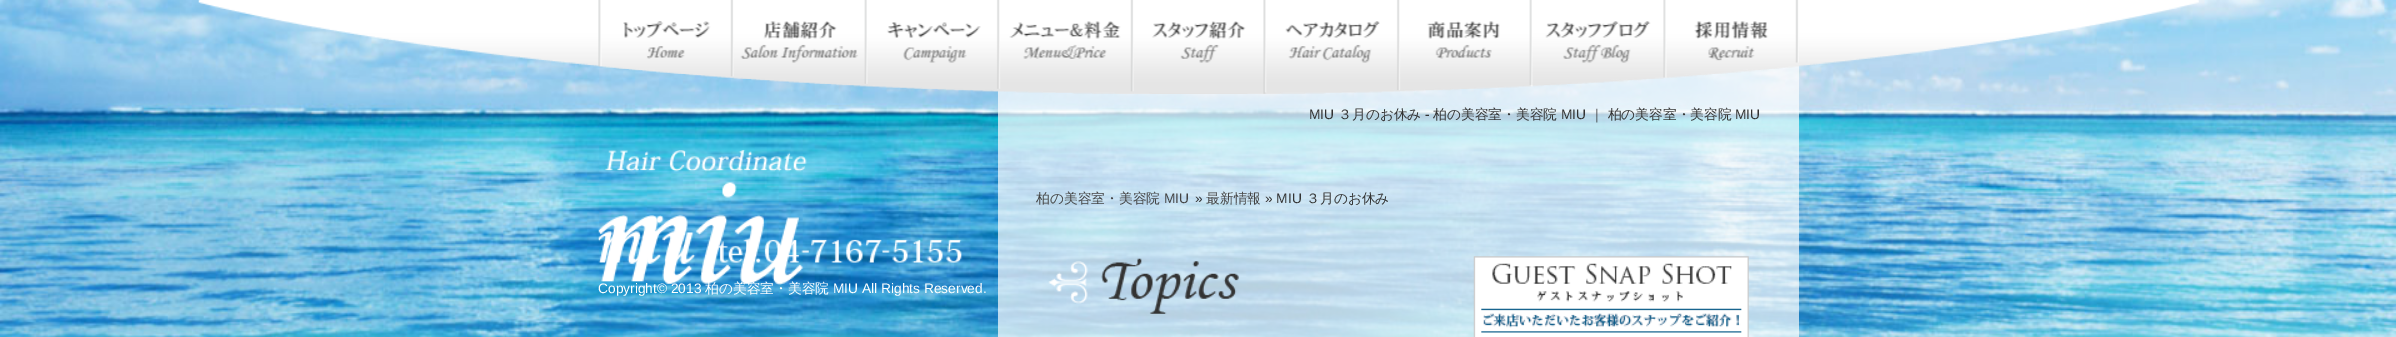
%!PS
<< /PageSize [2396 337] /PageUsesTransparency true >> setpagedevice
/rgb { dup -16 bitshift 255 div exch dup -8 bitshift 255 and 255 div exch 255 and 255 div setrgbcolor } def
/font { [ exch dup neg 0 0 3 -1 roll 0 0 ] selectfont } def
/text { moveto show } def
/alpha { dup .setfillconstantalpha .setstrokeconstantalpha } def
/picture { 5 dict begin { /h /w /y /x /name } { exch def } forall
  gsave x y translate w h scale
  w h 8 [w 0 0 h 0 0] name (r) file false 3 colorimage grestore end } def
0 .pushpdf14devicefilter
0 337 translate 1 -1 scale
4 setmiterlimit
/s1 { /LiberationSans-Regular 13.75 font 16#333333 rgb } def
/s2 { /WenQuanYiZenHei-Medium 13.75 font 16#333333 rgb } def
/s3 { /WenQuanYiZenHei-Medium 13.75 font 16#444444 rgb } def
/s4 { /LiberationSans-Regular 13.75 font 16#444444 rgb } def
/s5 { /LiberationSans-Regular 13.75 font 16#FFFFFF rgb } def
/s6 { /WenQuanYiZenHei-Medium 13.75 font 16#FFFFFF rgb } def
16#FFFFFF rgb
0 0 2396 337 rectfill
(pic1.raw) 0 0 2396 337 picture
0.7 alpha
998 64 801 273 rectfill
1 alpha
(pic2.raw) 198 0 2001 94 picture
(pic3.raw) 598 0 136 78 picture
(pic4.raw) 733 0 135 87 picture
(pic5.raw) 867 0 134 92 picture
(pic6.raw) 1000 0 134 94 picture
(pic7.raw) 1133 0 134 94 picture
(pic8.raw) 1266 0 135 94 picture
(pic9.raw) 1400 0 133 91 picture
(pic10.raw) 1532 0 135 86 picture
(pic11.raw) 1666 0 133 78 picture
(pic12.raw) 598 150 209 135 picture
s1
(MIU) 1309 119 text
s2
(３月のお休み) 1338 119 text
s1
(-) 1425 119 text
s2
(柏の美容室・美容院) 1433 119 text
s1
(MIU) 1561 119 text
s2
(｜ 柏の美容室・美容院) 1590 119 text
s1
(MIU) 1735 119 text
s3
(柏の美容室・美容院) 1036 203 text
s4
(MIU) 1164 203 text
s1
(») 1195 203 text
s3
(最新情報) 1206 203 text
s1
(» MIU) 1265 203 text
s2
(３月のお休み) 1306 203 text
(pic13.raw) 1048 258 191 56 picture
(pic14.raw) 1473 256 276 81 picture
(pic15.raw) 598 215 364 50 picture
s5
(Copyright© 2013) 598 293 text
s6
(柏の美容室・美容院) 705 293 text
s5
(MIU All Rights Reserved.) 833 293 text
.poppdf14devicefilter showpage
